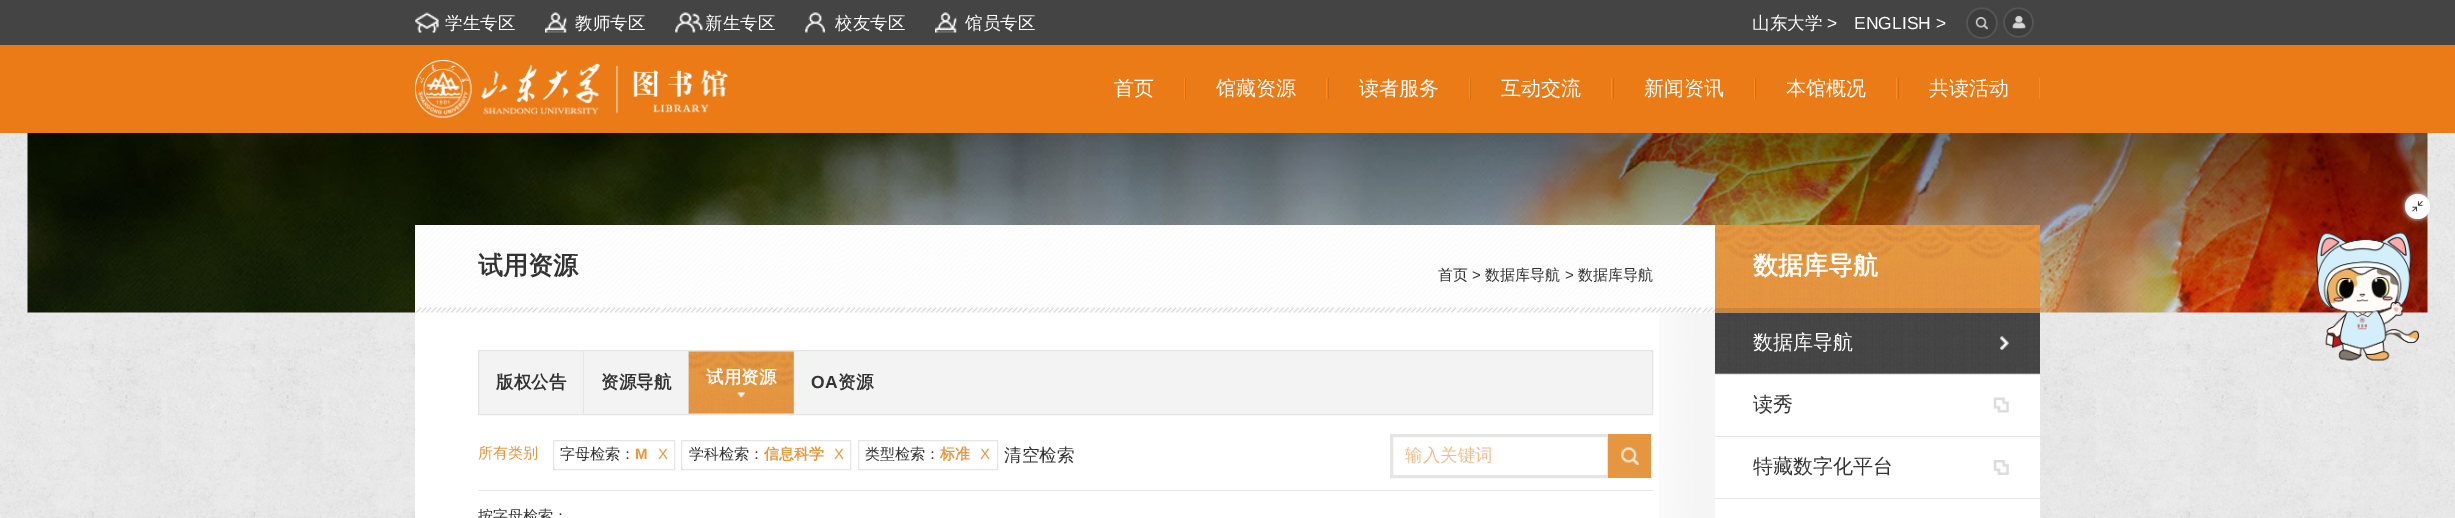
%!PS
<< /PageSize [2455 518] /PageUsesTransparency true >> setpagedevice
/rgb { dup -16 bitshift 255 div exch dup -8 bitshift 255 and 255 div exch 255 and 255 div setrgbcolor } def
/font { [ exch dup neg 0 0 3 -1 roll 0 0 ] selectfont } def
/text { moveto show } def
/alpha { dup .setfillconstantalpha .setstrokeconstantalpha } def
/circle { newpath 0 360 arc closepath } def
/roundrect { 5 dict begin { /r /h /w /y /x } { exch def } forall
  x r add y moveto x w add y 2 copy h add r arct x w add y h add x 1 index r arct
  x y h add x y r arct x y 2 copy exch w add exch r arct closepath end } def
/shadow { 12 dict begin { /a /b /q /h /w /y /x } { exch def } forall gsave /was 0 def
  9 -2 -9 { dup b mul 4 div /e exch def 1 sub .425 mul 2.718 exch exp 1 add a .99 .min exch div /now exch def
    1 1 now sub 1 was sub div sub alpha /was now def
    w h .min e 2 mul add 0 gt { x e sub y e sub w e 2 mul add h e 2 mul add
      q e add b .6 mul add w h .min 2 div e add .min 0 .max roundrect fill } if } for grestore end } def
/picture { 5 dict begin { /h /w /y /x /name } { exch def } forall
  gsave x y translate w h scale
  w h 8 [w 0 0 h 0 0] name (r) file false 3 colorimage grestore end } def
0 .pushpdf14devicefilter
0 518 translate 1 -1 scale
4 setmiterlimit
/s1 { /WenQuanYiZenHei-Medium 17.5 font 16#FFFFFF rgb } def
/s2 { /LiberationSans-Regular 17.5 font 16#FFFFFF rgb } def
/s3 { /WenQuanYiZenHei-Medium 20 font 16#FFFFFF rgb } def
/s4 { /WenQuanYiZenHei-Bold 25 font 16#333333 rgb } def
/s5 { /WenQuanYiZenHei-Medium 15 font 16#333333 rgb } def
/s6 { /LiberationSans-Regular 15 font 16#333333 rgb } def
/s7 { /WenQuanYiZenHei-Bold 17.5 font 16#333333 rgb } def
/s8 { /WenQuanYiZenHei-Bold 17.5 font 16#FFFFFF rgb } def
/s9 { /LiberationSans-Bold 17.5 font 16#333333 rgb } def
/s10 { /WenQuanYiZenHei-Medium 15 font 16#E6963F rgb } def
/s11 { /LiberationSans-Bold 15 font 16#E6963F rgb } def
/s12 { /LiberationSans-Regular 15 font 16#E6963F rgb } def
/s13 { /WenQuanYiZenHei-Bold 15 font 16#E6963F rgb } def
/s14 { /WenQuanYiZenHei-Medium 17.5 font 16#333333 rgb } def
/s15 { /WenQuanYiZenHei-Medium 17.5 font 16#F2BC8B rgb } def
/s16 { /WenQuanYiZenHei-Bold 25 font 16#FFFFFF rgb } def
/s17 { /WenQuanYiZenHei-Medium 20 font 16#333333 rgb } def
16#FFFFFF rgb
0 0 2455 518 rectfill
16#444444 rgb
0 0 2455 45 rectfill
(pic1.raw) 415 12 24 21 picture
s1
(学生专区) 445 29 text
(pic2.raw) 545 12 22 21 picture
(教师专区) 575 29 text
(pic3.raw) 675 12 28 21 picture
(新生专区) 705 29 text
(pic4.raw) 805 12 20 21 picture
(校友专区) 835 29 text
(pic2.raw) 935 12 22 21 picture
(馆员专区) 965 29 text
(山东大学) 1752 29 text
s2
(>) 1827 29 text
(ENGLISH >) 1854 29 text
(pic5.raw) 1966 7 32 32 picture
(pic6.raw) 2003 7 31 31 picture
16#EA7B17 rgb
0 45 2455 88 rectfill
(pic7.raw) 415 60 313 58 picture
s3
(首页) 1114 95 text
16#FF891E rgb
1184 78 1 21 rectfill
s3
(馆藏资源) 1216 95 text
16#FF891E rgb
1326 78 1 21 rectfill
16#D16F17 rgb
1185 78 1 21 rectfill
s3
(读者服务) 1359 95 text
16#FF891E rgb
1469 78 1 21 rectfill
16#D16F17 rgb
1328 78 1 21 rectfill
s3
(互动交流) 1501 95 text
16#FF891E rgb
1611 78 1 21 rectfill
16#D16F17 rgb
1470 78 1 21 rectfill
s3
(新闻资讯) 1644 95 text
16#FF891E rgb
1754 78 1 21 rectfill
16#D16F17 rgb
1613 78 1 21 rectfill
s3
(本馆概况) 1786 95 text
16#FF891E rgb
1896 78 1 21 rectfill
16#D16F17 rgb
1755 78 1 21 rectfill
s3
(共读活动) 1929 95 text
16#FF891E rgb
2039 78 1 21 rectfill
16#D16F17 rgb
1898 78 1 21 rectfill
(pic8.raw) 0 133 2455 385 picture
(pic9.raw) 27 133 2401 180 picture
16#FFFFFF rgb
415 225 1625 293 rectfill
(pic11.raw) 1659 312 56 206 picture
(pic10.raw) 415 225 1300 88 picture
s4
(试用资源) 478 274 text
s5
(首页) 1438 280 text
s6
(>) 1472 280 text
s5
(数据库导航) 1485 280 text
s6
(>) 1565 280 text
s5
(数据库导航) 1578 280 text
16#F3F3F3 rgb
478.5 350.5 moveto 1652.5 350.5 lineto 1652.5 414.5 lineto 478.5 414.5 lineto closepath gsave fill grestore
16#E5E5E5 rgb
stroke
s7
(版权公告) 496 388 text
16#E5E5E5 rgb
583 351 1 63 rectfill
s7
(资源导航) 601 388 text
16#E5E5E5 rgb
688 351 1 63 rectfill
793 351 1 63 rectfill
(pic12.raw) 688 351 106 63 picture
s8
(试用资源) 706 383 text
(pic13.raw) 737 392 8 6 picture
s9
(OA) 811 388 text
s7
(资源) 838 388 text
s10
(所有类别) 478 458 text
16#E5E5E5 rgb
553.5 440.5 121 29 rectstroke
s5
(字母检索：) 560 459 text
s11
(M) 635 459 text
s12
(X) 658 459 text
16#E5E5E5 rgb
681.5 440.5 169 29 rectstroke
s5
(学科检索：) 689 459 text
s13
(信息科学) 764 459 text
s12
(X) 834 459 text
16#E5E5E5 rgb
858.5 440.5 139 29 rectstroke
s5
(类型检索：) 865 459 text
s13
(标准) 940 459 text
s12
(X) 980 459 text
s14
(清空检索) 1004 461 text
16#E5E5E5 rgb
3 setlinewidth
1391.5 435.5 217 41 rectstroke
s15
(输入关键词) 1405 461 text
16#E6963F rgb
1608 434 43 44 rectfill
(pic14.raw) 1621 447 18 18 picture
16#E5E5E5 rgb
478 490 1175 1 rectfill
gsave
478 491 1175 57 rectclip
s5
(按字母检索：) 478 521 text
grestore
(pic16.raw) 1715 312 325 62 picture
(pic15.raw) 1715 225 325 88 picture
s16
(数据库导航) 1753 274 text
0.1 alpha
16#000000 rgb
1715 308 325 5 rectfill
1 alpha
16#E5E5E5 rgb
1715 374 325 1 rectfill
(pic17.raw) 2000 336 9 14 picture
s3
(数据库导航) 1753 349 text
16#E5E5E5 rgb
1715 436 325 1 rectfill
(pic18.raw) 1993 397 16 16 picture
s17
(读秀) 1753 411 text
16#E5E5E5 rgb
1715 498 325 1 rectfill
(pic19.raw) 1993 460 16 15 picture
s17
(特藏数字化平台) 1753 473 text
16#DDDDDD rgb
2405 194 25 25 12.5 2.5 1 shadow
16#FFFFFF rgb
2417.5 206.5 12.5 circle fill
(pic20.raw) 2412 201 11 11 picture
(pic21.raw) 2316 231 103 131 picture
.poppdf14devicefilter showpage
